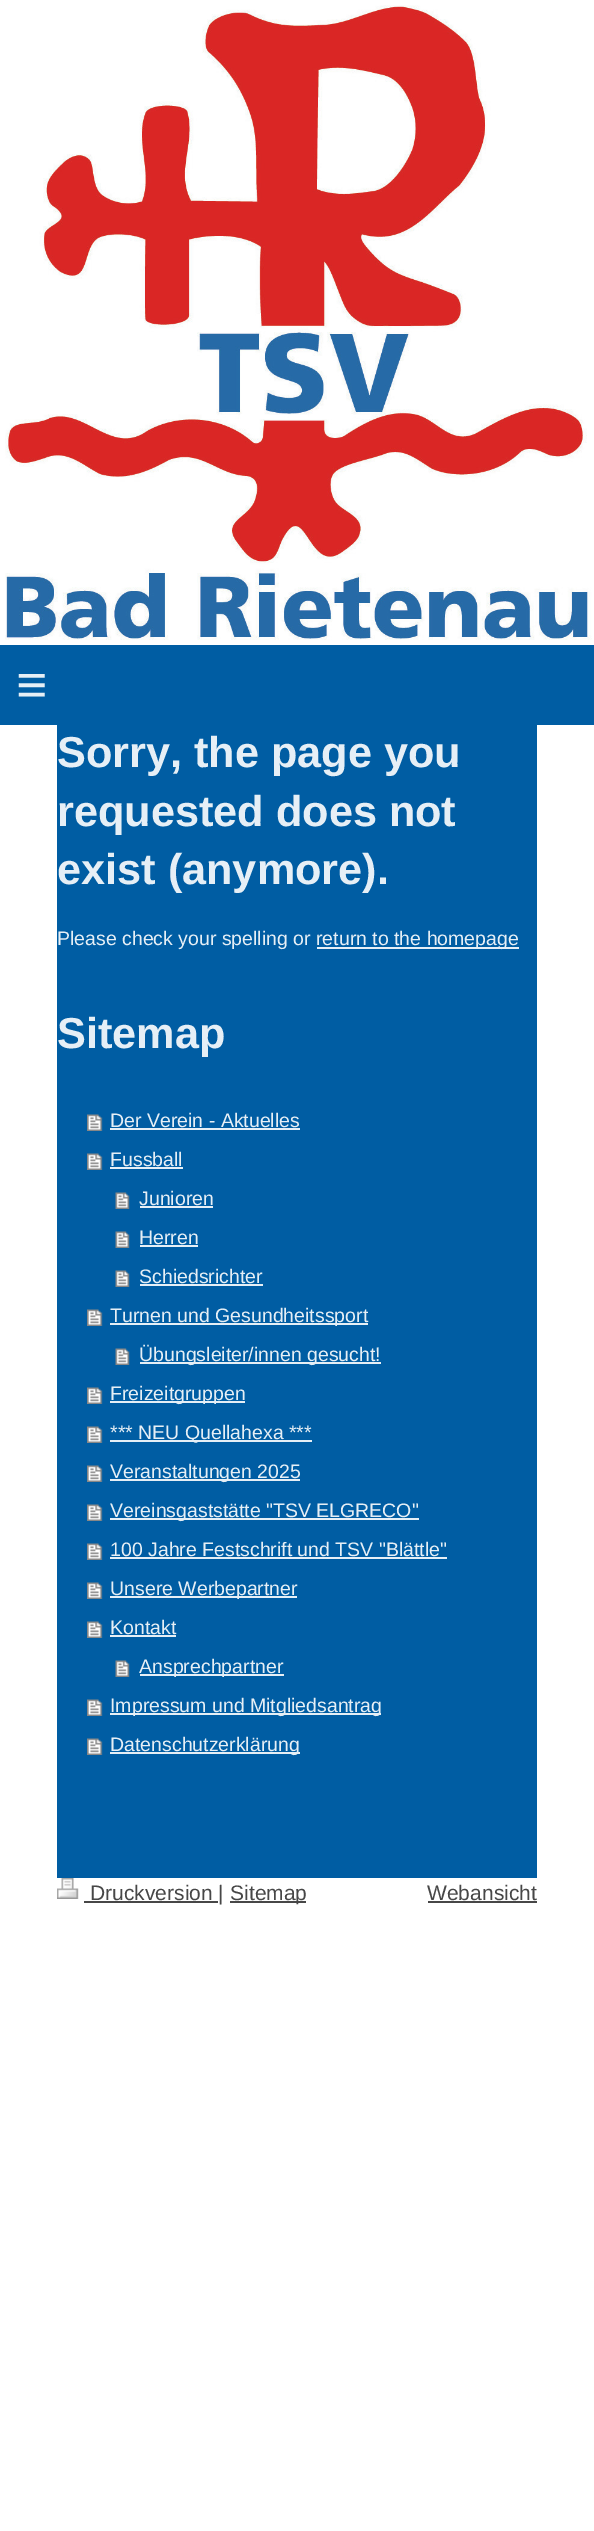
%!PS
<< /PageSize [594 2531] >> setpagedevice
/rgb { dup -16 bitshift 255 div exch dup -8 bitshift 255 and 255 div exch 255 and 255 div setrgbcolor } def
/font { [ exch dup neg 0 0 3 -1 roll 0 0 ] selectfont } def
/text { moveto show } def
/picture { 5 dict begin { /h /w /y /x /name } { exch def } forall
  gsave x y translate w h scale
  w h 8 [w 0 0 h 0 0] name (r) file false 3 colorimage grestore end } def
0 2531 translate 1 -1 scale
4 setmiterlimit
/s1 { /LiberationSans-Bold 43.25 font 16#E6EFF6 rgb } def
/s2 { /LiberationSans-Regular 19.5 font 16#E6EFF6 rgb } def
/s3 { /LiberationSans-Regular 21 font 16#474747 rgb } def
16#FFFFFF rgb
0 0 594 2531 rectfill
(pic1.raw) 0 0 594 645 picture
16#005DA3 rgb
0 645 594 80 rectfill
/LiberationSans-Regular 54 font
16#E6EFF6 rgb
16 703 moveto 16 0 (≡) ashow
16#005DA3 rgb
57 725 480 1153 rectfill
s1
(Sorry, the page you) 57 767 text
(requested does not) 57 826 text
(exist \(anymore\).) 57 884 text
s2
(Please check your spelling or) 57 945 text
317 947 202 2 rectfill
(return to the homepage) 316 945 text
s1
(Sitemap) 57 1048 text
(pic2.raw) 87 1114 16 17 picture
s2
(Der Verein - Aktuelles) 110 1127 text
110 1128 190 2 rectfill
(pic2.raw) 87 1153 16 17 picture
(Fussball) 110 1166 text
110 1167 73 2 rectfill
(pic3.raw) 115 1192 15 17 picture
(Junioren) 139 1205 text
140 1206 73 2 rectfill
(pic3.raw) 115 1231 15 17 picture
(Herren) 139 1244 text
140 1245 58 2 rectfill
(pic3.raw) 115 1270 15 17 picture
(Schiedsrichter) 139 1283 text
140 1284 123 2 rectfill
(pic2.raw) 87 1309 16 17 picture
110 1323 258 2 rectfill
(Turnen und Gesundheitssport) 110 1322 text
(pic3.raw) 115 1348 15 17 picture
140 1362 241 2 rectfill
(Übungsleiter/innen gesucht!) 139 1361 text
(pic2.raw) 87 1387 16 17 picture
110 1401 135 2 rectfill
(Freizeitgruppen) 110 1400 text
(pic2.raw) 87 1426 16 17 picture
110 1440 202 2 rectfill
(*** NEU Quellahexa ***) 110 1439 text
(pic2.raw) 87 1465 16 17 picture
110 1479 190 2 rectfill
(Veranstaltungen 2025) 110 1478 text
(pic2.raw) 87 1504 16 17 picture
110 1518 309 2 rectfill
(Vereinsgaststätte "TSV ELGRECO") 110 1517 text
(pic2.raw) 87 1543 16 17 picture
(100 Jahre Festschrift und TSV "Blättle") 110 1556 text
110 1557 337 2 rectfill
(pic2.raw) 87 1582 16 17 picture
110 1596 187 2 rectfill
(Unsere Werbepartner) 110 1595 text
(pic2.raw) 87 1621 16 17 picture
(Kontakt) 110 1634 text
110 1635 66 2 rectfill
(pic3.raw) 115 1660 15 17 picture
140 1674 144 2 rectfill
(Ansprechpartner) 139 1673 text
(pic2.raw) 87 1699 16 17 picture
110 1713 271 2 rectfill
(Impressum und Mitgliedsantrag) 110 1712 text
(pic2.raw) 87 1738 16 17 picture
110 1752 190 2 rectfill
(Datenschutzerklärung) 110 1751 text
(pic4.raw) 57 1878 22 21 picture
16#474747 rgb
84 1901 134 2 rectfill
s3
(Druckversion |) 90 1900 text
230 1901 76 2 rectfill
(Sitemap) 230 1900 text
(Webansicht) 427 1900 text
428 1901 109 2 rectfill
showpage
